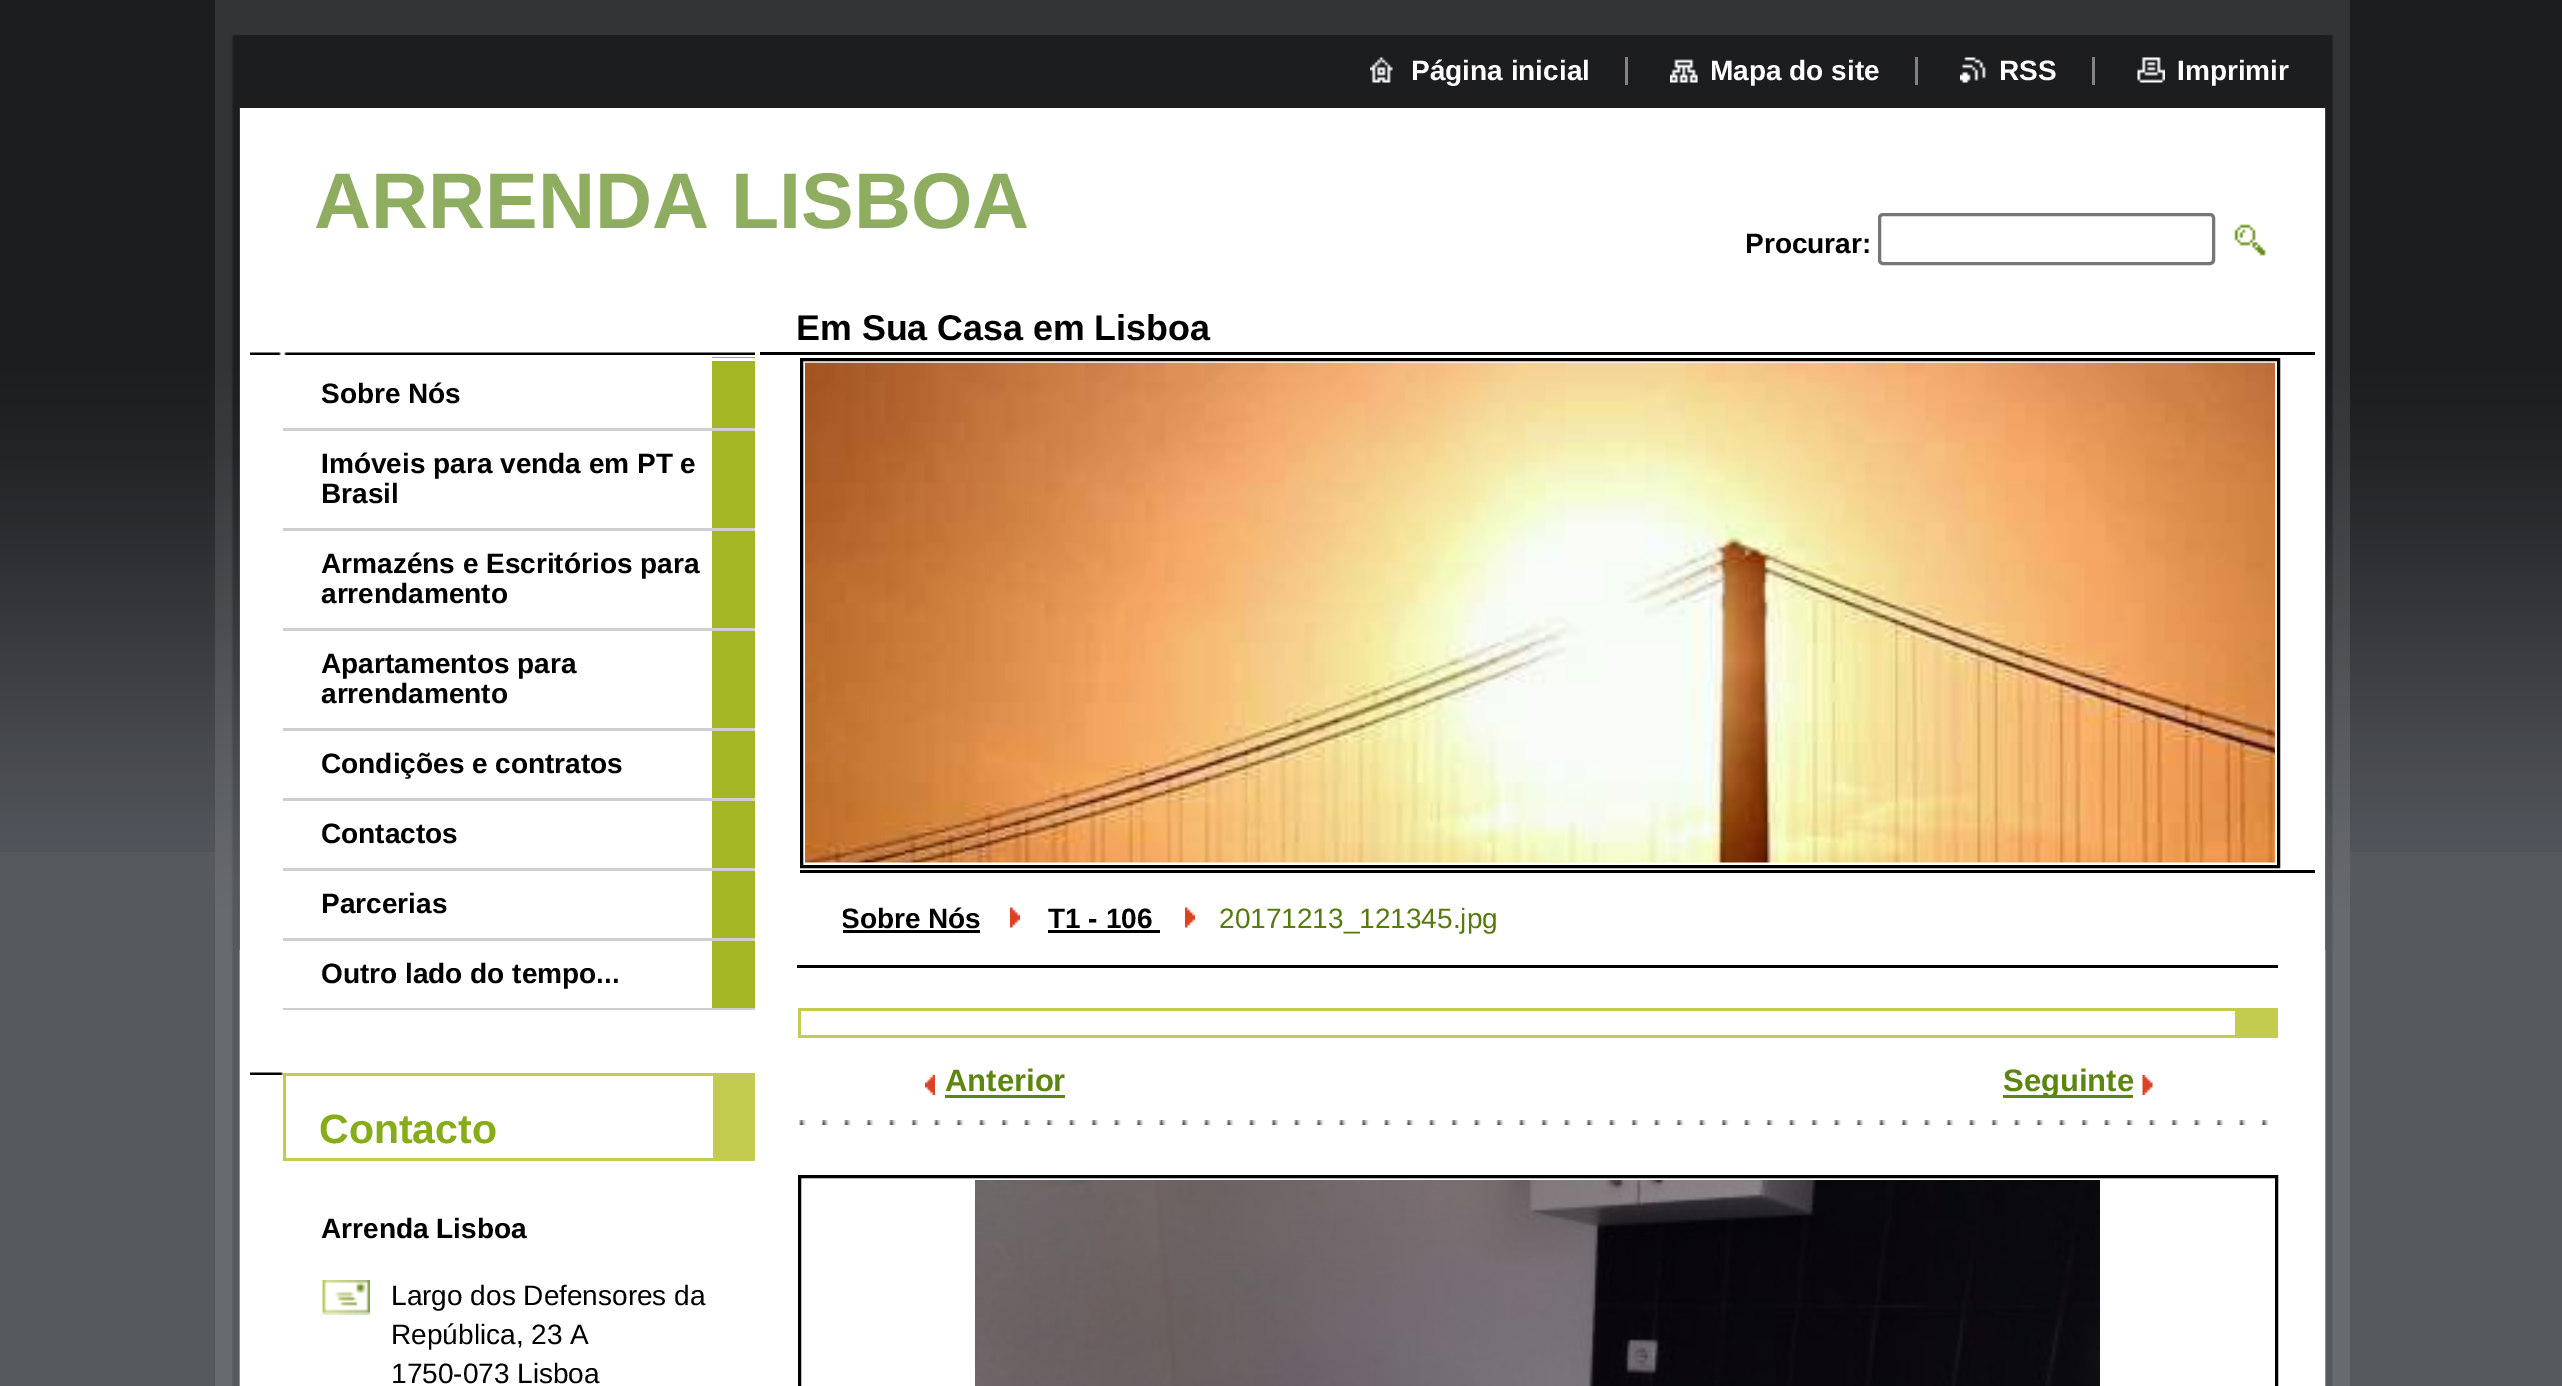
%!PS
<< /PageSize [2562 1386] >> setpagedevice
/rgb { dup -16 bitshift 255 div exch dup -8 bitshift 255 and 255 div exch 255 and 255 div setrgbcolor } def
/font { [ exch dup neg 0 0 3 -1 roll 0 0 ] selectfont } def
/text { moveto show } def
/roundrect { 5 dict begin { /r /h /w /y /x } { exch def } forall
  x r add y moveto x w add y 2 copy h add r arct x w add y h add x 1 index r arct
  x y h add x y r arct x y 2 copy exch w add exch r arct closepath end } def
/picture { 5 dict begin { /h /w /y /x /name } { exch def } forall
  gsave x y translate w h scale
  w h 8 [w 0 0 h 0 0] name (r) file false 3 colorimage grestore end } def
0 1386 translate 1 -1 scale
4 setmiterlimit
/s1 { /LiberationSans-Bold 28 font 16#FFFFFF rgb } def
/s2 { /LiberationSans-Bold 79 font 16#8EAD60 rgb } def
/s3 { /LiberationSans-Bold 28 font 16#000000 rgb } def
/s4 { /LiberationSans-Bold 35.8 font 16#000000 rgb } def
/s5 { /LiberationSans-Bold 41 font 16#86AD17 rgb } def
/s6 { /LiberationSans-Regular 28 font 16#000000 rgb } def
/s7 { /LiberationSans-Regular 28 font 16#567A0E rgb } def
/s8 { /LiberationSans-Bold 31 font 16#5D8511 rgb } def
16#56595D rgb
0 0 2562 1386 rectfill
(pic1.raw) 0 0 2562 852 picture
16#676A6E rgb
215 950 2135 436 rectfill
(pic2.raw) 232 106 2101 1280 picture
(pic3.raw) 215 0 2135 950 picture
16#FFFFFF rgb
240 108 2085 1278 rectfill
16#323436 rgb
240 34 2085 1 rectfill
16#1B1D1F rgb
240 35 2085 73 rectfill
(pic4.raw) 1370 57 23 26 picture
s1
(Página inicial) 1411 80 text
(pic5.raw) 1670 59 28 24 picture
(Mapa do site) 1710 80 text
16#828282 rgb
1625 57 3 28 rectfill
(pic6.raw) 1960 57 26 26 picture
s1
(RSS) 1999 80 text
16#828282 rgb
1915 57 3 28 rectfill
(pic7.raw) 2137 57 28 26 picture
s1
(Imprimir) 2177 80 text
16#828282 rgb
2092 57 3 28 rectfill
s2
(ARRENDA LISBOA) 314 228 text
s3
(Procurar:) 1745 253 text
16#767676 rgb
3 setlinewidth
1879.5 214.5 334 49 3.5 roundrect stroke
(pic8.raw) 2234 224 32 32 picture
s4
(Em Sua Casa em Lisboa) 796 340 text
(pic9.raw) 250 352 505 3 picture
16#A4B624 rgb
712 357 43 651 rectfill
16#FFFFFF rgb
712 358 43 3 rectfill
16#CFCFCF rgb
283 428 472 3 rectfill
s3
(Sobre Nós) 321 403 text
16#CFCFCF rgb
283 528 472 3 rectfill
s3
(Imóveis para venda em PT e) 321 473 text
(Brasil) 321 503 text
16#CFCFCF rgb
283 628 472 3 rectfill
s3
(Armazéns e Escritórios para) 321 573 text
(arrendamento) 321 603 text
16#CFCFCF rgb
283 728 472 3 rectfill
s3
(Apartamentos para) 321 673 text
(arrendamento) 321 703 text
16#CFCFCF rgb
283 798 472 3 rectfill
s3
(Condições e contratos) 321 773 text
16#CFCFCF rgb
283 868 472 3 rectfill
s3
(Contactos) 321 843 text
16#CFCFCF rgb
283 938 472 3 rectfill
s3
(Parcerias) 321 913 text
16#CFCFCF rgb
283 1008 472 2 rectfill
s3
(Outro lado do tempo...) 321 983 text
(pic10.raw) 250 1072 33 3 picture
16#C3CC4E rgb
283 1073 430 3 rectfill
713 1073 42 85 rectfill
283 1158 472 3 rectfill
283 1073 3 87 rectfill
s5
(Contacto) 319 1143 text
s3
(Arrenda Lisboa) 321 1238 text
(pic11.raw) 322 1280 48 35 picture
s6
(Largo dos Defensores da) 391 1305 text
(República, 23 A) 391 1344 text
(1750-073 Lisboa) 391 1383 text
760 352 1555 3 rectfill
800 870 1515 3 rectfill
801.5 359.5 1477 507 rectstroke
(pic12.raw) 805 362 1470 501 picture
797 965 1481 3 rectfill
gsave
843 873 1390 95 rectclip
s3
(Sobre Nós) 841 928 text
grestore
843 930 137 3 rectfill
(pic13.raw) 1010 907 10 21 picture
s3
(T1 - 106) 1048 928 text
1048 930 112 3 rectfill
(pic14.raw) 1185 907 10 21 picture
s7
(20171213_121345.jpg) 1219 928 text
16#C3CC4E rgb
798 1008 1437 3 rectfill
2235 1008 43 27 rectfill
798 1035 1480 3 rectfill
798 1008 3 30 rectfill
(pic15.raw) 799 1120 1470 5 picture
(pic16.raw) 925 1075 10 20 picture
s8
(Anterior) 945 1091 text
945 1095 120 3 rectfill
2003 1095 130 3 rectfill
(Seguinte) 2003 1091 text
(pic17.raw) 2142 1075 11 20 picture
16#000000 rgb
799.5 1176.5 1477 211 rectstroke
(pic18.raw) 975 1180 1125 206 picture
showpage
